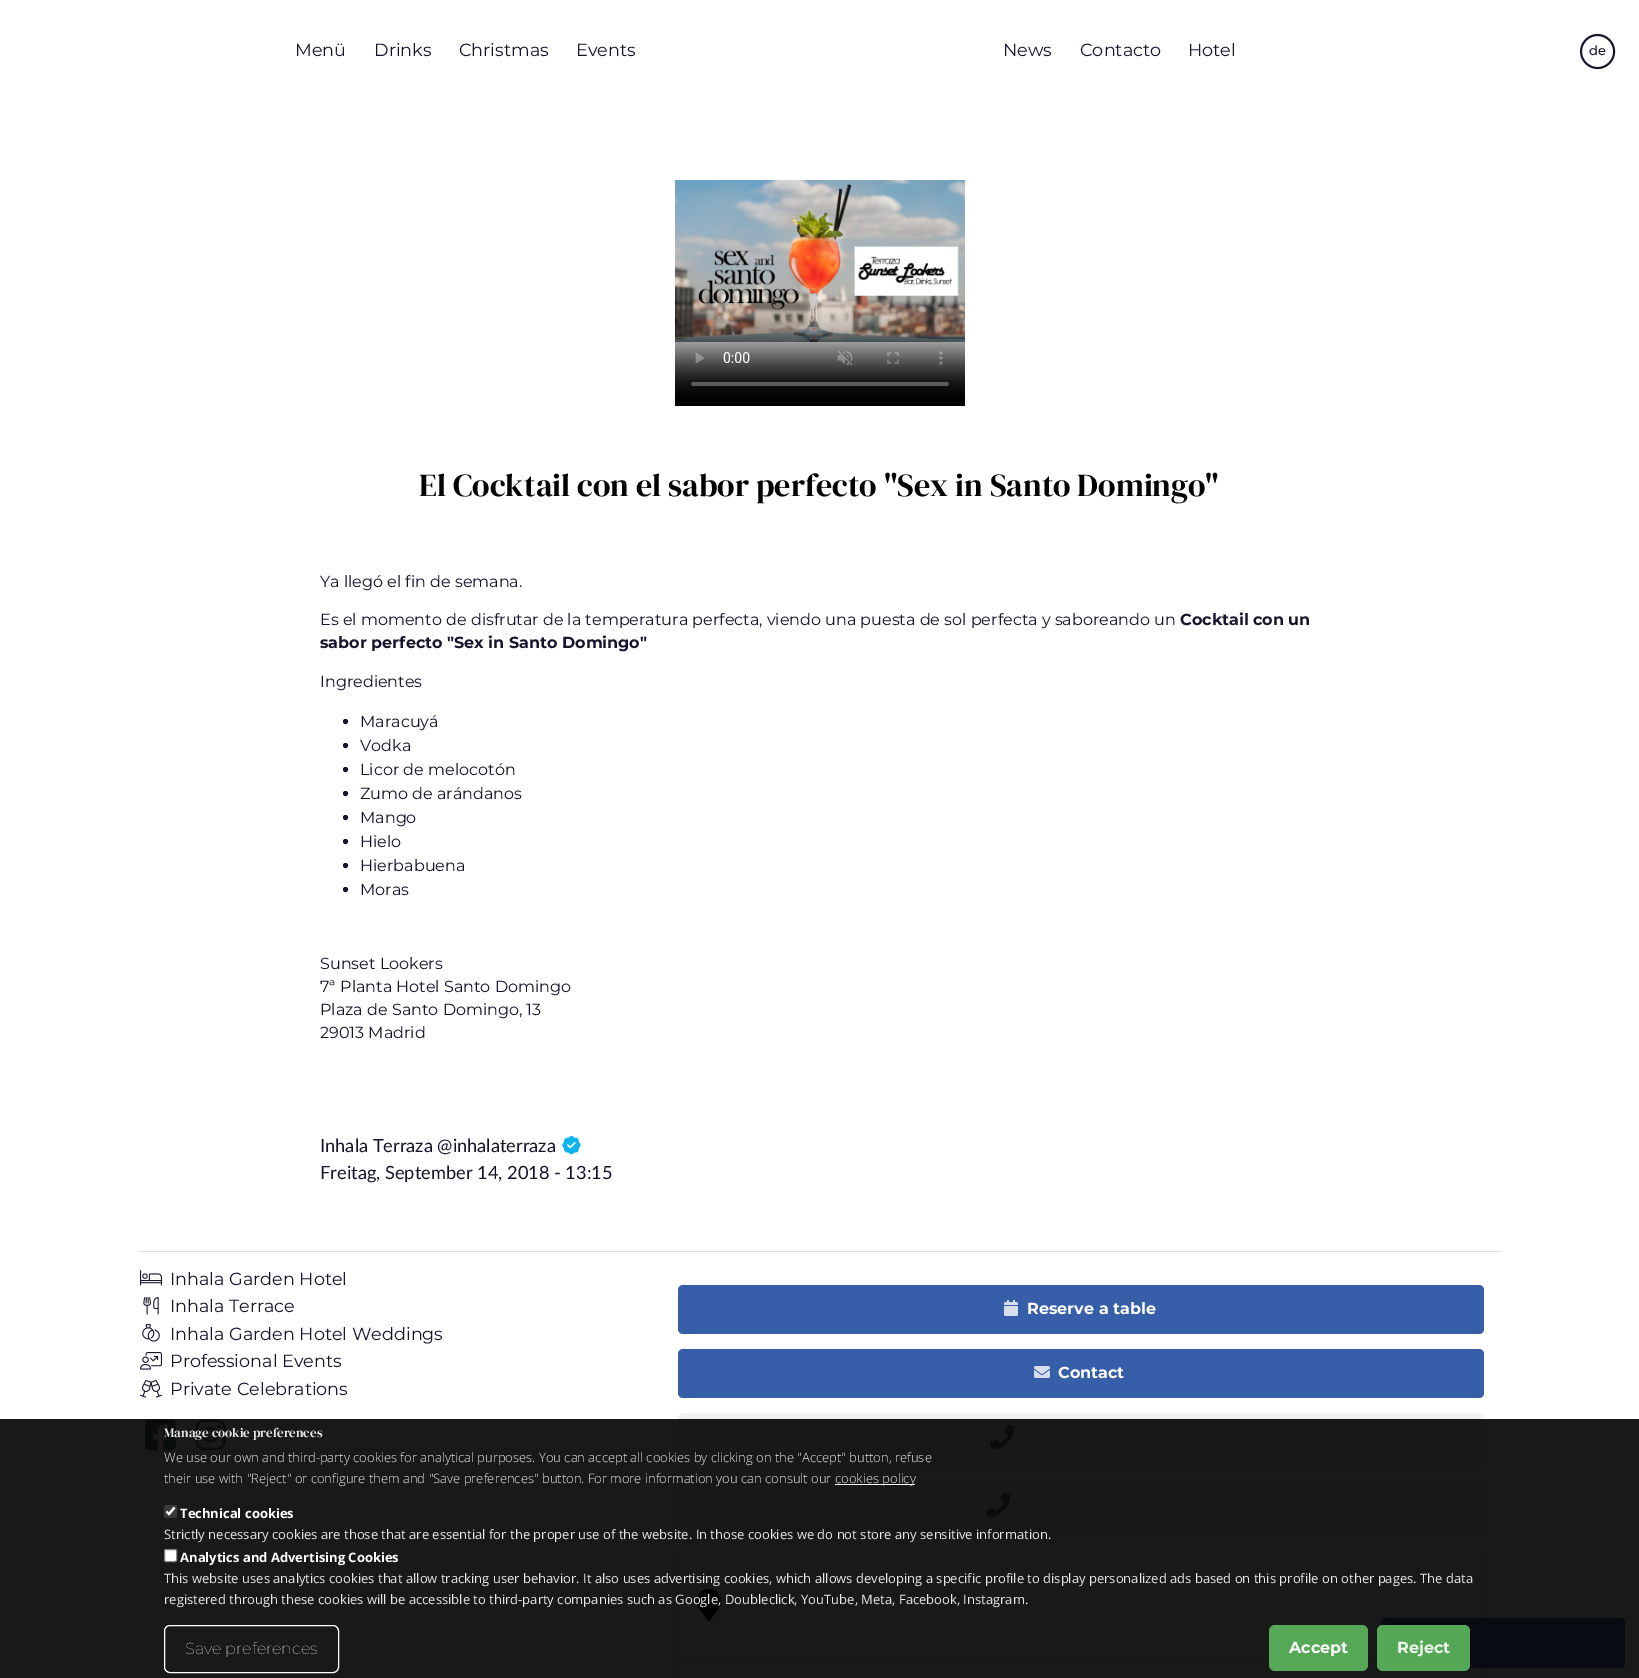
%!PS
<< /PageSize [1639 1678] /PageUsesTransparency true >> setpagedevice
/rgb { dup -16 bitshift 255 div exch dup -8 bitshift 255 and 255 div exch 255 and 255 div setrgbcolor } def
/font { [ exch dup neg 0 0 3 -1 roll 0 0 ] selectfont } def
/text { moveto show } def
/alpha { dup .setfillconstantalpha .setstrokeconstantalpha } def
/circle { newpath 0 360 arc closepath } def
/roundrect { 5 dict begin { /r /h /w /y /x } { exch def } forall
  x r add y moveto x w add y 2 copy h add r arct x w add y h add x 1 index r arct
  x y h add x y r arct x y 2 copy exch w add exch r arct closepath end } def
/picture { 5 dict begin { /h /w /y /x /name } { exch def } forall
  gsave x y translate w h scale
  w h 8 [w 0 0 h 0 0] name (r) file false 3 colorimage grestore end } def
0 .pushpdf14devicefilter
0 1678 translate 1 -1 scale
4 setmiterlimit
/s1 { /Montserrat-Regular 17.6 font 16#17142C rgb } def
/s2 { /Montserrat-Medium 13 font 16#17142C rgb } def
/s3 { /DMSerifDisplay-Regular 32 font 16#000000 rgb } def
/s4 { /Montserrat-Regular 16 font 16#17142C rgb } def
/s5 { /Montserrat-Bold 16 font 16#17142C rgb } def
/s6 { /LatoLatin-Regular 18.25 font 16#17142C rgb } def
/s7 { /Montserrat-Bold 16 font 16#FFFFFF rgb } def
/s8 { /DMSerifDisplay-Regular 13 font 16#E8E8E8 rgb } def
/s9 { /OpenSans-Light 13 font 16#E8E8E8 rgb } def
/s10 { /OpenSans-Bold 13 font 16#FFFFFF rgb } def
/s11 { /OpenSans-Regular 13 font 16#E8E8E8 rgb } def
/s12 { /Montserrat-Thin 16 font 16#FFFFFF rgb } def
/s13 { /Montserrat-Bold 16 font 16#EEF6EE rgb } def
16#FFFFFF rgb
0 0 1639 1678 rectfill
s1
(Menü) 295 56 text
(Drinks) 374 56 text
(Christmas) 459 56 text
(Events) 576 56 text
(News) 1003 56 text
(Contacto) 1080 56 text
(Hotel) 1188 56 text
(pic1.raw) 1580 33 36 37 picture
s2
(de) 1589 55 text
(pic2.raw) 675 180 290 226 picture
s3
(El Cocktail con el sabor perfecto "Sex in Santo Domingo") 419 496 text
s4
(Ya llegó el fin de semana.) 320 587 text
(Es el momento de disfrutar de la temperatura perfecta, viendo una puesta de sol perfecta y saboreando un) 320 625 text
s5
(Cocktail con un) 1180 625 text
(sabor perfecto "Sex in Santo Domingo") 320 648 text
s4
(Ingredientes) 320 687 text
345.5 721.5 2.5 circle fill
(Maracuyá) 360 727 text
345.5 745.5 2.5 circle fill
(Vodka) 360 751 text
345.5 769.5 2.5 circle fill
(Licor de melocotón) 360 775 text
345.5 793.5 2.5 circle fill
(Zumo de arándanos) 360 799 text
345.5 817.5 2.5 circle fill
(Mango) 360 823 text
345.5 841.5 2.5 circle fill
(Hielo) 360 847 text
345.5 865.5 2.5 circle fill
(Hierbabuena) 360 871 text
345.5 889.5 2.5 circle fill
(Moras) 360 895 text
(Sunset Lookers) 320 969 text
(7ª Planta Hotel Santo Domingo) 320 992 text
(Plaza de Santo Domingo, 13) 320 1015 text
(29013 Madrid) 320 1038 text
s6
(Inhala Terraza @inhalaterraza) 320 1152 text
(pic3.raw) 562 1136 19 19 picture
(Freitag, September 14, 2018 - 13:15) 320 1179 text
16#DEDEDE rgb
140 1251 1360 1 rectfill
(pic4.raw) 140 1270 22 16 picture
s1
(Inhala Garden Hotel) 170 1285 text
(pic5.raw) 143 1297 16 18 picture
(Inhala Terrace) 170 1312 text
(pic6.raw) 142 1324 18 18 picture
(Inhala Garden Hotel Weddings) 170 1340 text
(pic7.raw) 140 1352 22 18 picture
(Professional Events) 170 1367 text
(pic8.raw) 140 1380 22 18 picture
(Private Celebrations) 170 1395 text
(pic9.raw) 145 1419 31 32 picture
(pic10.raw) 195 1419 31 32 picture
16#365EA9 rgb
678 1285 806 49 5 roundrect fill
(pic11.raw) 1004 1300 14 16 picture
s7
(Reserve a table) 1027 1314 text
16#365EA9 rgb
678 1349 806 49 5 roundrect fill
(pic12.raw) 1034 1366 16 12 picture
s7
(Contact) 1058 1378 text
16#F2F2F2 rgb
678 1413 806 53 5 roundrect fill
(pic13.raw) 990 1425 25 24 picture
678 1481 806 53 5 roundrect fill
(pic13.raw) 986 1493 25 24 picture
16#DEDEDE rgb
678.5 1550.5 805 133 4.5 roundrect stroke
16#17142C rgb
708 1620.5 moveto 705 1616.5 698 1608 697 1603.5 curveto 694.5 1590.5 711.5 1583.5 719 1594.5 curveto 724.5 1602.5 718 1609 713.5 1615.5 curveto 709.5 1621 lineto 709 1621 708 1621 708 1620.5 curveto closepath fill
16#E9E9E9 rgb
679 1658 804 1 rectfill
0.85 alpha
16#365EA9 rgb
1381 1618 244 50 5 roundrect fill
0.9 alpha
16#000000 rgb
0 1419 1639 259 rectfill
1 alpha
s8
(Manage cookie preferences) 164 1437 text
s9
(We use our own and third-party cookies for analytical purposes. You can accept all cookies by clicking on the "Accept" button, refuse) 164 1462 text
(their use with "Reject" or configure them and "Save preferences" button. For more information you can consult our) 164 1483 text
16#FEFEFE rgb
835 1484 80 1 rectfill
s9
(cookies policy) 835 1483 text
16#393939 rgb
164 1505 13 13 2 roundrect fill
16#FFFFFF rgb
2.1 setlinewidth
166.5 1511.5 moveto 169 1514 lineto 174.5 1507.5 lineto stroke
s10
(Technical cookies) 180 1518 text
s11
(Strictly necessary cookies are those that are essential for the proper use of the website. In those cookies we do not store any sensitive information.) 164 1539 text
16#FFFFFF rgb
164.5 1549.5 12 12 1.5 roundrect gsave fill grestore
16#848484 rgb
1 setlinewidth
stroke
s10
(Analytics and Advertising Cookies) 180 1562 text
s11
(This website uses analytics cookies that allow tracking user behavior. It also uses advertising cookies, which allows developing a specific profile to display personalized ads based on this profile on other pages. The data) 164 1583 text
(registered through these cookies will be accessible to third-party companies such as Google, Doubleclick, YouTube, Meta, Facebook, Instagram.) 164 1604 text
16#FFFFFF rgb
164.5 1625.5 174 47 5.5 roundrect stroke
s12
(Save preferences) 185 1654 text
16#55A855 rgb
1269 1625 99 46 6 roundrect fill
s7
(Accept) 1289 1653 text
0.9 alpha
16#5CB85C rgb
1377 1625 93 46 6 roundrect fill
1 alpha
s13
(Reject) 1397 1653 text
.poppdf14devicefilter showpage
